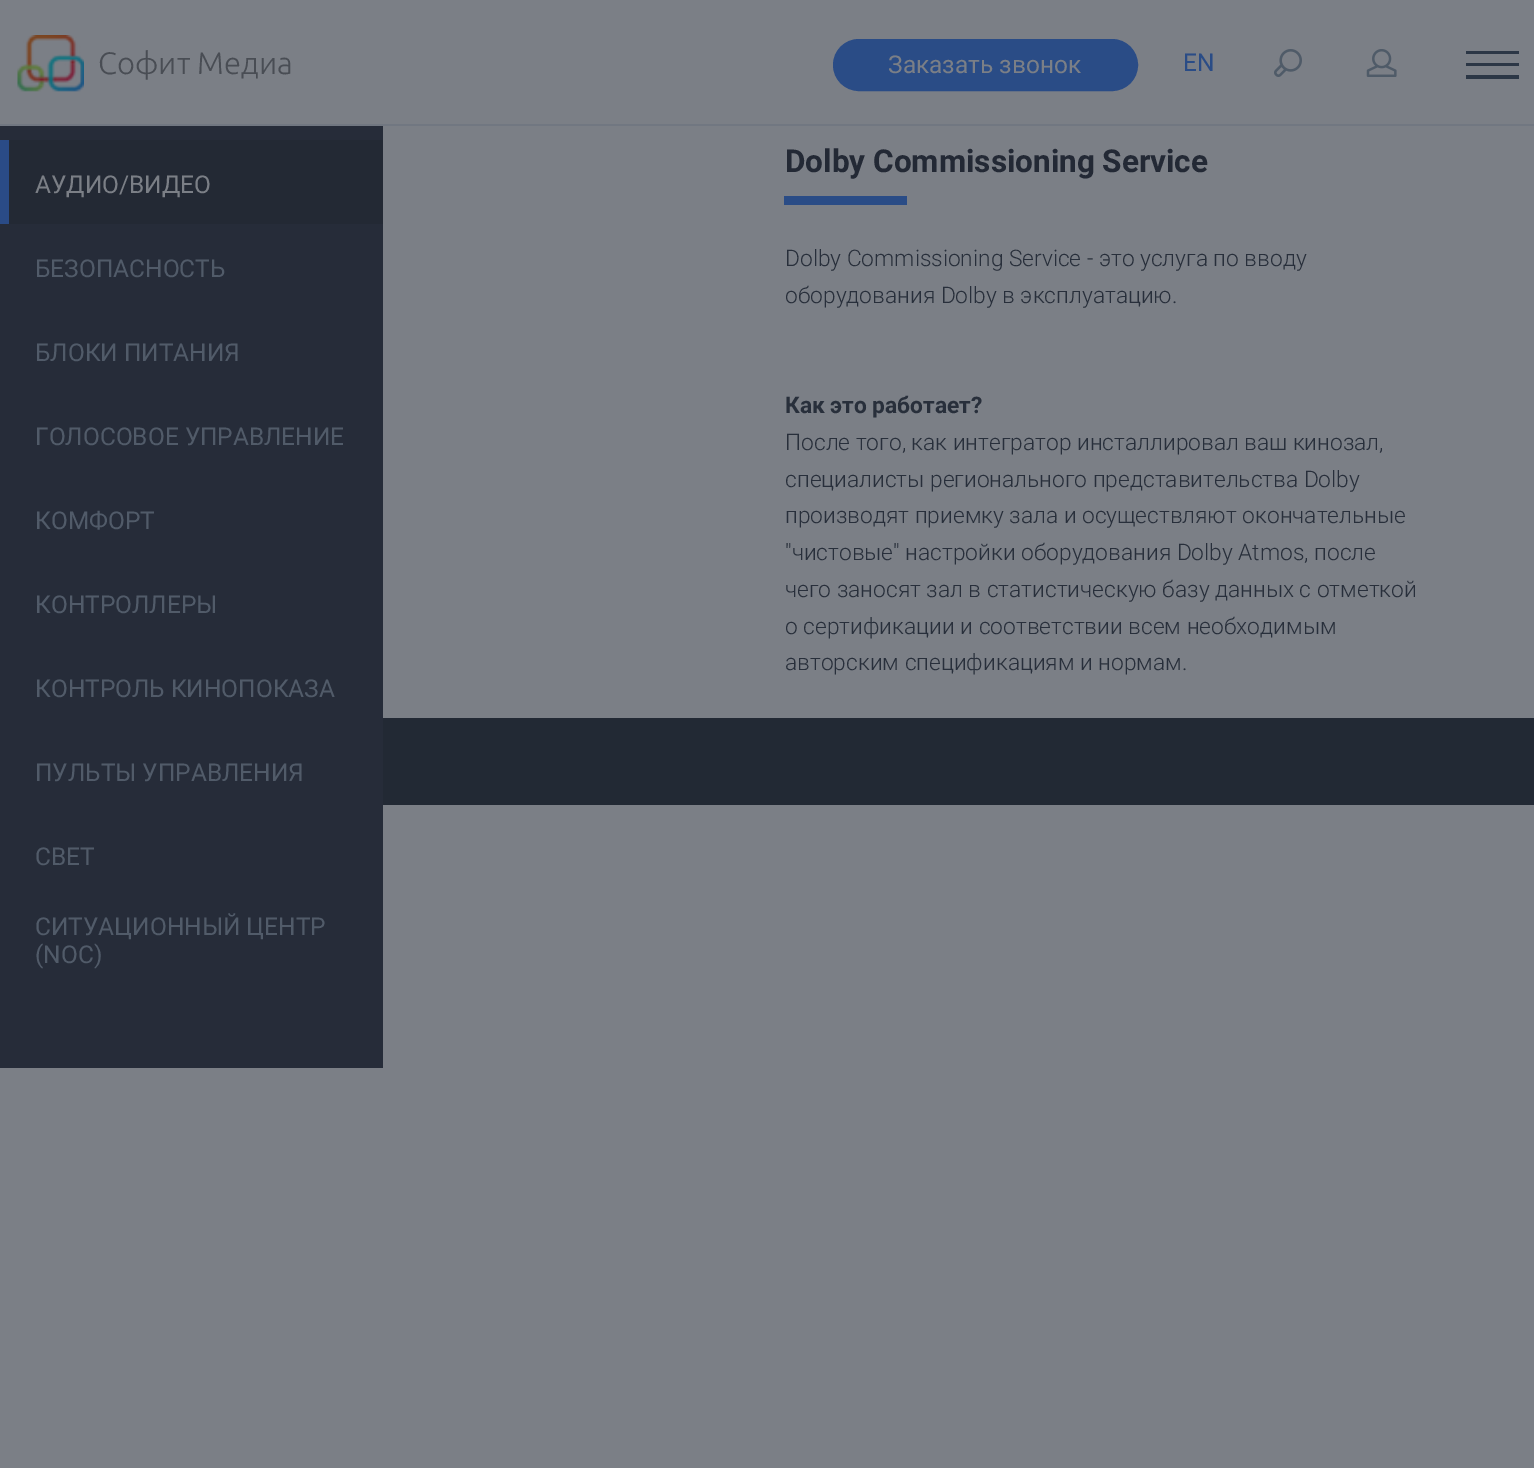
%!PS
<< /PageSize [1534 1468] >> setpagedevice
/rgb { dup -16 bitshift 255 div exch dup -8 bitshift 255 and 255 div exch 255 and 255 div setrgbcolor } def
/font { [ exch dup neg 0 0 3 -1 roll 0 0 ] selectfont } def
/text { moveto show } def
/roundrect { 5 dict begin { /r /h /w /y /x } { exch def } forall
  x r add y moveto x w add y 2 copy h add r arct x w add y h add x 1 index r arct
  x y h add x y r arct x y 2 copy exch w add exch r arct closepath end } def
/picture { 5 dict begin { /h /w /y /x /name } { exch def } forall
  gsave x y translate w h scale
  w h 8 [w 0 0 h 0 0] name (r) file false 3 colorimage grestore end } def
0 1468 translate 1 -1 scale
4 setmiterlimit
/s1 { /Ubuntu-Light 31 font 16#494D54 rgb } def
/s2 { /Roboto-Regular 24.5 font 16#7B7F86 rgb } def
/s3 { /Roboto-Regular 24.5 font 16#2A4C86 rgb } def
/s4 { /Roboto-Regular 24.5 font 16#515B69 rgb } def
/s5 { /Roboto-Bold 31.5 font 16#232935 rgb } def
/s6 { /Roboto-Light 22.75 font 16#282F3B rgb } def
/s7 { /Roboto-Bold 22.75 font 16#282F3B rgb } def
16#7B7F86 rgb
0 0 1534 1468 rectfill
16#717781 rgb
0 124 1534 2 rectfill
(pic1.raw) 17 35 67 57 picture
s1
(Софит Медиа) 98 74 text
16#2A4C86 rgb
835 41 301 48 24 roundrect gsave fill grestore
4 setlinewidth
stroke
s2
(Заказать звонок) 888 73 text
s3
(EN) 1183 71 text
(pic2.raw) 1274 49 28 28 picture
(pic3.raw) 1366 49 31 28 picture
16#2C3746 rgb
1466 51 moveto 1519 51 lineto 1519 54 lineto 1466 54 lineto closepath 1466 63 moveto 1519 63 lineto 1519 66 lineto 1466 66 lineto closepath 1466 75 moveto 1519 75 lineto 1519 79 lineto 1466 79 lineto closepath fill
16#262C39 rgb
0 126 383 942 rectfill
16#232934 rgb
9 140 374 84 rectfill
16#2A4B86 rgb
0 140 9 84 rectfill
s2
(АУДИО/ВИДЕО) 35 193 text
s4
(БЕЗОПАСНОСТЬ) 35 277 text
(БЛОКИ ПИТАНИЯ) 35 361 text
(ГОЛОСОВОЕ УПРАВЛЕНИЕ) 35 445 text
(КОМФОРТ) 35 529 text
(КОНТРОЛЛЕРЫ) 35 613 text
(КОНТРОЛЬ КИНОПОКАЗА) 35 697 text
(ПУЛЬТЫ УПРАВЛЕНИЯ) 35 781 text
(СВЕТ) 35 865 text
(СИТУАЦИОННЫЙ ЦЕНТР) 35 935 text
(\(NOC\)) 35 963 text
s5
(Dolby Commissioning Service) 785 172 text
16#2A4C86 rgb
784 196 123 9 rectfill
s6
(Dolby Commissioning Service - это услуга по вводу) 785 266 text
(оборудования Dolby в эксплуатацию.) 785 303 text
s7
(Как это работает?) 785 413 text
s6
(После того, как интегратор инсталлировал ваш кинозал,) 785 450 text
(специалисты регионального представительства Dolby) 785 487 text
(производят приемку зала и осуществляют окончательные) 785 523 text
("чистовые" настройки оборудования Dolby Atmos, после) 785 560 text
(чего заносят зал в статистическую базу данных с отметкой) 785 597 text
(о сертификации и соответствии всем необходимым) 785 634 text
(авторским спецификациям и нормам.) 785 670 text
16#222934 rgb
383 718 1151 87 rectfill
showpage
